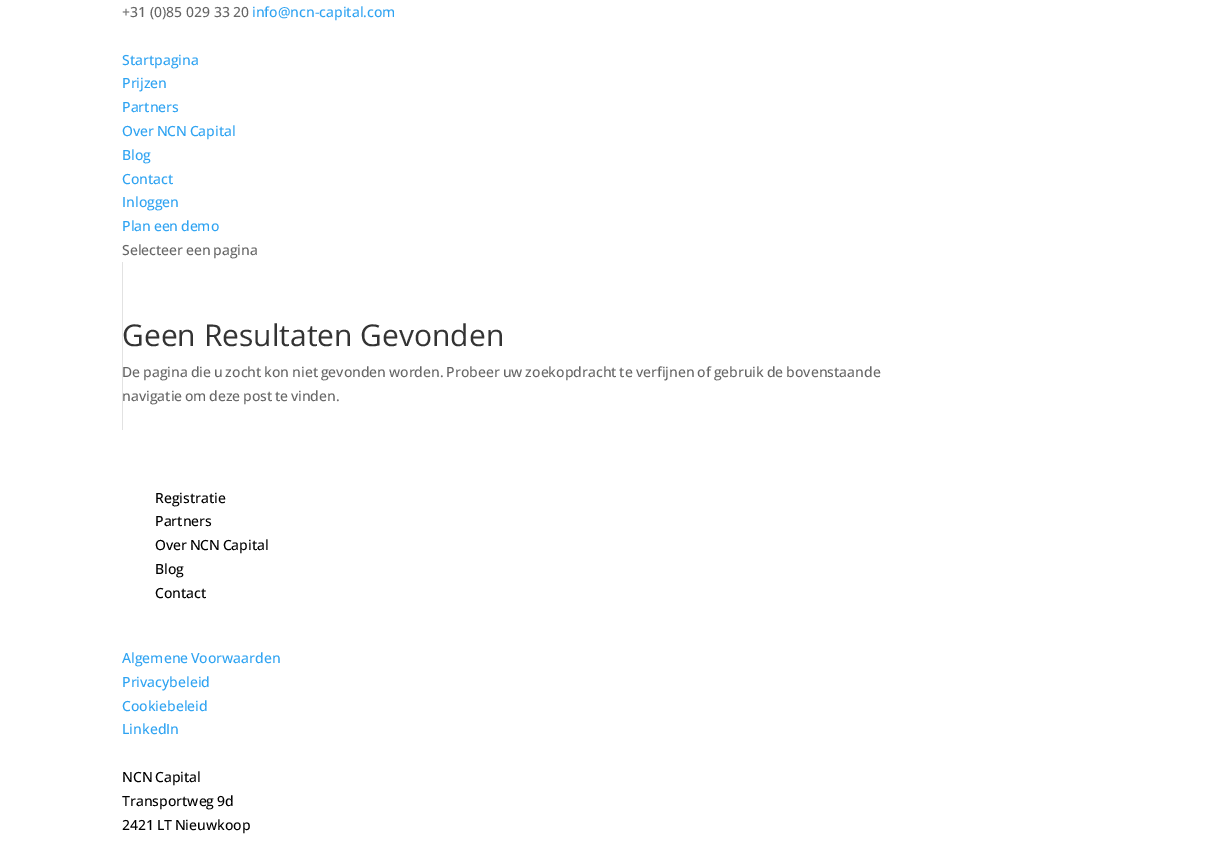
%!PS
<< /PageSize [1219 841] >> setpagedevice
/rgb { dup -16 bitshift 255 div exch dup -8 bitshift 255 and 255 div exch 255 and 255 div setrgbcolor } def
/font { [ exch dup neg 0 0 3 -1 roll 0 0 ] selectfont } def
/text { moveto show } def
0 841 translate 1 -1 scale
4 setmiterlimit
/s1 { /OpenSans-Medium 14 font 16#666666 rgb } def
/s2 { /OpenSans-Medium 14 font 16#2EA3F2 rgb } def
/s3 { /OpenSans-Regular 30 font 16#333333 rgb } def
/s4 { /OpenSans-Medium 14 font 16#000000 rgb } def
16#FFFFFF rgb
0 0 1219 841 rectfill
s1
(+31 \(0\)85 029 33 20) 122 17 text
s2
(info@ncn-capital.com) 252 17 text
(Startpagina) 122 65 text
(Prijzen) 122 88 text
(Partners) 122 112 text
122 136 moveto -1 0 32 (Over NCN Capital) widthshow
(Blog) 122 160 text
(Contact) 122 184 text
(Inloggen) 122 207 text
122 231 moveto -1 0 32 (Plan een demo) widthshow
16#666666 rgb
122 255 moveto -1 0 32 (Selecteer een pagina) widthshow
16#E2E2E2 rgb
122 262 1 168 rectfill
s3
(Geen Resultaten Gevonden) 122 346 text
/OpenSans-Medium 14 font
16#666666 rgb
122 377 moveto -0.75 0 32 (De pagina die u zocht kon niet gevonden worden. Probeer uw zoekopdracht te verfijnen of gebruik de bovenstaande) widthshow
122 401 moveto -1 0 32 (navigatie om deze post te vinden.) widthshow
s4
(Registratie) 155 503 text
(Partners) 155 526 text
155 550 moveto -1 0 32 (Over NCN Capital) widthshow
(Blog) 155 574 text
(Contact) 155 598 text
16#2EA3F2 rgb
122 663 moveto -1 0 32 (Algemene Voorwaarden) widthshow
(Privacybeleid) 122 687 text
(Cookiebeleid) 122 711 text
(LinkedIn) 122 734 text
16#000000 rgb
122 782 moveto -1 0 32 (NCN Capital) widthshow
122 806 moveto -1 0 32 (Transportweg 9d) widthshow
122 830 moveto -1 0 32 (2421 LT Nieuwkoop) widthshow
showpage
